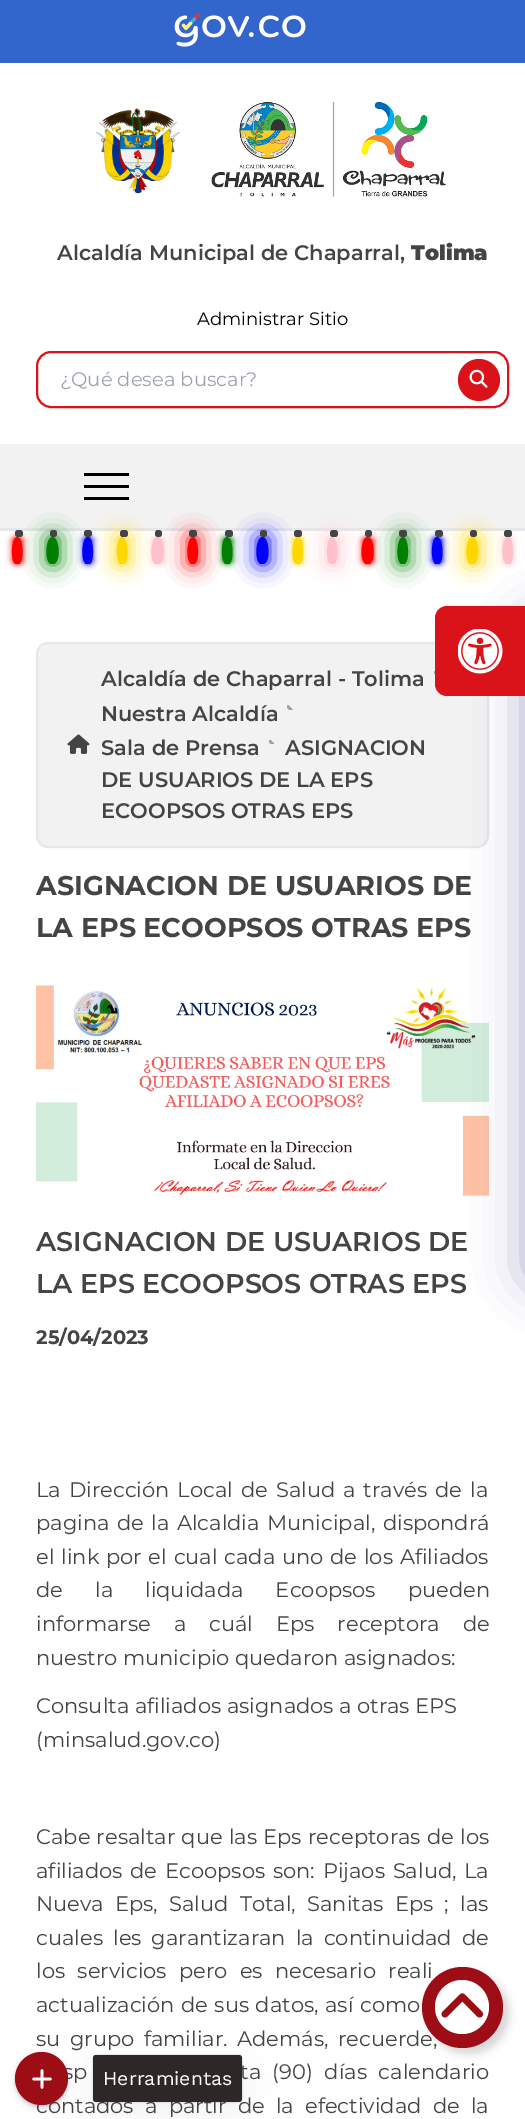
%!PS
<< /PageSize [525 2119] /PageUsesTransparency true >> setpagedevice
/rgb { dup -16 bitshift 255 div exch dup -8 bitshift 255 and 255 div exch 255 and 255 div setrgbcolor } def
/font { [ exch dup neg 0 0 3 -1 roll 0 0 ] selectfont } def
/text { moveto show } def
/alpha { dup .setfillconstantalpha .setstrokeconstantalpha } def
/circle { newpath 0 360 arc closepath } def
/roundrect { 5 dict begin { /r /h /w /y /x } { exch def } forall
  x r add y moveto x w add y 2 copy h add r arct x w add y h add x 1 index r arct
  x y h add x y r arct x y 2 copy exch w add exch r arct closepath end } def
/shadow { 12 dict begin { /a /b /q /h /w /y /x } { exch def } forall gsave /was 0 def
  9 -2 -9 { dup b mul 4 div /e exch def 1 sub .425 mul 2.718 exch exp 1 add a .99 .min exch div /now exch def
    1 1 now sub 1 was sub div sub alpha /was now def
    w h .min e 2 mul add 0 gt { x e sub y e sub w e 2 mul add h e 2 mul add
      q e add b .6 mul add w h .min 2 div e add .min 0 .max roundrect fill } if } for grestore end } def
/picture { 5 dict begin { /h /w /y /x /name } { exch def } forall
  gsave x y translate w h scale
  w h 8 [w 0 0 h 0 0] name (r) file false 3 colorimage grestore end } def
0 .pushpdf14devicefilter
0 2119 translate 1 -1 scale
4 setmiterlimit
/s1 { /Montserrat-SemiBold 21 font 16#444444 rgb } def
/s2 { /Montserrat-Black 21 font 16#444444 rgb } def
/s3 { /Montserrat-Regular 18 font 16#000000 rgb } def
/s4 { /Montserrat-Regular 19.5 font 16#9CA3AF rgb } def
/s5 { /Montserrat-Bold 27 font 16#444444 rgb } def
/s6 { /Montserrat-SemiBold 27 font 16#444444 rgb } def
/s7 { /Montserrat-Bold 19.5 font 16#444444 rgb } def
/s8 { /Montserrat-Regular 21 font 16#444444 rgb } def
/s9 { /WorkSans-Regular 19.5 font 16#FFFFFF rgb } def
16#FFFFFF rgb
0 0 525 2119 rectfill
16#3366CC rgb
0 0 525 63 rectfill
(pic1.raw) 174 13 132 34 picture
(pic2.raw) 96 108 84 86 picture
(pic3.raw) 211 101 235 96 picture
s1
(Alcaldía Municipal de Chaparral,) 57 260 text
s2
(Tolima) 411 260 text
s3
(Administrar Sitio) 197 325 text
16#DA121A rgb
2 setlinewidth
37 352 471 55 14 roundrect stroke
s4
(¿Qué desea buscar?) 60 386 text
16#DA121A rgb
479 380 21 circle fill
(pic4.raw) 469 369 19 19 picture
16#F2F2F2 rgb
0 444 525 84 rectfill
16#E5E7EB rgb
0 528 525 3 rectfill
16#000000 rgb
84 473 45 3 rectfill
84 485 45 3 rectfill
84 497 45 3 rectfill
16#FF0000 rgb
12 537 11 27 5.5 3 1 shadow
17 537 moveto 23.5 537 24.5 561 19 564 curveto 16 564 lineto 10 563.5 11 537 17 537 curveto closepath fill
16#444444 rgb
15 530 8 7 3 roundrect fill
16#008000 rgb
47 537 12 27 6 11 1 shadow
52.5 537 moveto 60 537 61 563.5 53.5 564 curveto 50.5 564 lineto 44 561 45.5 537 52.5 537 curveto closepath fill
16#444444 rgb
50 530 7 7 3 roundrect fill
16#0000FF rgb
83 537 10 27 5 3 1 shadow
88 537 moveto 94 537 95 563.5 89 564 curveto 86 564 lineto 80.5 561 81.5 537 88 537 curveto closepath fill
16#444444 rgb
84 530 8 7 3 roundrect fill
16#FFD700 rgb
117 537 11 27 5.5 11 1 shadow
122 537 moveto 128.5 537 129.5 563.5 123.5 564 curveto 120.5 564 lineto 115 561 116 537 122 537 curveto closepath fill
16#444444 rgb
120 530 8 7 3 roundrect fill
16#FFC0CB rgb
152 537 12 27 6 3 1 shadow
157.5 537 moveto 165 537 166 563.5 158.5 564 curveto 155.5 564 lineto 149 561 150.5 537 157.5 537 curveto closepath fill
16#444444 rgb
155 530 7 7 3 roundrect fill
16#FF0000 rgb
188 537 10 27 5 11 1 shadow
193 537 moveto 199 537 200 563.5 194 564 curveto 191 564 lineto 185.5 561 186.5 537 193 537 curveto closepath fill
16#444444 rgb
189 530 8 7 3 roundrect fill
16#008000 rgb
222 537 11 27 5.5 3 1 shadow
227 537 moveto 233.5 537 234.5 563.5 228.5 564 curveto 225.5 564 lineto 220 561 221 537 227 537 curveto closepath fill
16#444444 rgb
225 530 8 7 3 roundrect fill
16#0000FF rgb
257 537 12 27 6 11 1 shadow
262.5 537 moveto 269.5 537 271 563 263.5 564 curveto 260.5 564 lineto 254 561 255.5 537 262.5 537 curveto closepath fill
16#444444 rgb
260 530 7 7 3 roundrect fill
16#FFD700 rgb
293 537 10 27 5 3 1 shadow
298 537 moveto 304 537 305 563.5 299 564 curveto 296 564 lineto 290.5 561 291.5 537 298 537 curveto closepath fill
16#444444 rgb
294 530 8 7 3 roundrect fill
16#FFC0CB rgb
327 537 11 27 5.5 11 1 shadow
332 537 moveto 338.5 537 339.5 561 334 564 curveto 331 564 lineto 325 563.5 326 537 332 537 curveto closepath fill
16#444444 rgb
330 530 8 7 3 roundrect fill
16#FF0000 rgb
362 537 12 27 6 3 1 shadow
367.5 537 moveto 374.5 537 376 561 369.5 564 curveto 366.5 564 lineto 359 563 360.5 537 367.5 537 curveto closepath fill
16#444444 rgb
365 530 7 7 3 roundrect fill
16#008000 rgb
398 537 10 27 5 11 1 shadow
403 537 moveto 409 537 410 563.5 404 564 curveto 401 564 lineto 395.5 561 396.5 537 403 537 curveto closepath fill
16#444444 rgb
399 530 8 7 3 roundrect fill
16#0000FF rgb
432 537 11 27 5.5 3 1 shadow
437 537 moveto 443.5 537 444.5 563.5 438.5 564 curveto 435.5 564 lineto 430 561 431 537 437 537 curveto closepath fill
16#444444 rgb
435 530 8 7 3 roundrect fill
16#FFD700 rgb
467 537 12 27 6 11 1 shadow
472.5 537 moveto 479.5 537 481 563 473.5 564 curveto 470.5 564 lineto 464 561 465.5 537 472.5 537 curveto closepath fill
16#444444 rgb
470 530 7 7 3 roundrect fill
16#FFC0CB rgb
503 537 10 27 5 3 1 shadow
508 537 moveto 514 537 515 563.5 509 564 curveto 506 564 lineto 500.5 561 501.5 537 508 537 curveto closepath fill
16#444444 rgb
504 530 8 7 3 roundrect fill
16#F2F2F2 rgb
37 643 451 204 11 roundrect gsave fill grestore
16#E5E7EB rgb
stroke
(pic5.raw) 67 734 23 20 picture
s1
(Alcaldía de Chaparral - Tolima) 101 686 text
(pic6.raw) 434 671 1 4 picture
(Nuestra Alcaldía) 101 721 text
(pic7.raw) 287 705 6 5 picture
(Sala de Prensa) 101 755 text
(pic8.raw) 269 740 6 4 picture
(ASIGNACION) 285 755 text
(DE USUARIOS DE LA EPS) 101 787 text
(ECOOPSOS OTRAS EPS) 101 818 text
s5
(ASIGNACION DE USUARIOS DE) 36 895 text
(LA EPS ECOOPSOS OTRAS EPS) 36 937 text
(pic9.raw) 36 985 453 211 picture
s6
(ASIGNACION DE USUARIOS DE) 36 1251 text
(LA EPS ECOOPSOS OTRAS EPS) 36 1293 text
s7
(25/04/2023) 36 1344 text
/Montserrat-Regular 21 font
36 1497 moveto 2.5 0 32 (La Dirección Local de Salud a través de la) widthshow
36 1530 moveto 2 0 32 (pagina de la Alcaldia Municipal, dispondrá) widthshow
36 1564 moveto 1.25 0 32 (el link por el cual cada uno de los Afiliados) widthshow
36 1597 moveto 26.5 0 32 (de la liquidada Ecoopsos pueden) widthshow
36 1631 moveto 17.5 0 32 (informarse a cuál Eps receptora de) widthshow
(nuestro municipio quedaron asignados:) 36 1665 text
(Consulta afiliados asignados a otras EPS) 36 1713 text
(\(minsalud.gov.co\)) 36 1747 text
36 1844 moveto 0.75 0 32 (Cabe resaltar que las Eps receptoras de los) widthshow
36 1878 moveto 2.25 0 32 (afiliados de Ecoopsos son: Pijaos Salud, La) widthshow
36 1911 moveto 5.75 0 32 (Nueva Eps, Salud Total, Sanitas Eps ; las) widthshow
36 1945 moveto 4.5 0 32 (cuales les garantizaran la continuidad de) widthshow
36 1978 moveto 6.75 0 32 (los servicios pero es necesario reali) widthshow
36 2012 moveto 1 0 32 (actualización de sus datos, así como) widthshow
36 2046 moveto 4 0 32 (su grupo familiar. Además, recuerde,) widthshow
63 2079 moveto 6 0 32 (sp) widthshow
240 2079 moveto 6 0 32 (ta \(90\) días calendario) widthshow
36 2113 moveto 5.75 0 32 (contados a partir de la efectividad de la) widthshow
16#000000 rgb
428 1973 81 81 40.5 4.5 0.16 shadow
16#9D0D16 rgb
462.5 2007.5 40.5 circle fill
16#FFFFFF rgb
462 2007 27 circle fill
(pic10.raw) 441 1993 43 25 picture
16#000000 rgb
17 2055 49 50 24.5 2 0.3 shadow
16#32325D rgb
17 2057 49 49 24.5 4 0.25 shadow
16#9D0D16 rgb
41.5 2078.5 26.5 circle fill
(pic11.raw) 32 2069 20 20 picture
0.08 alpha
16#000000 rgb
93 2055 149 47 4 roundrect stroke
1 alpha
93 2064 149 47 3 18 0.05 shadow
16#2D2727 rgb
93 2055 149 47 3 roundrect fill
s9
(Herramientas) 103 2085 text
16#1F2687 rgb
525 618 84 666 12 24 0.37 shadow
16#DA121A rgb
447 606 moveto 525 606 lineto 525 696 lineto 447 696 lineto 440.5 696 435 690.5 435 684 curveto 435 618 lineto 435 611.5 440.5 606 447 606 curveto closepath fill
(pic12.raw) 458 629 45 45 picture
.poppdf14devicefilter showpage
